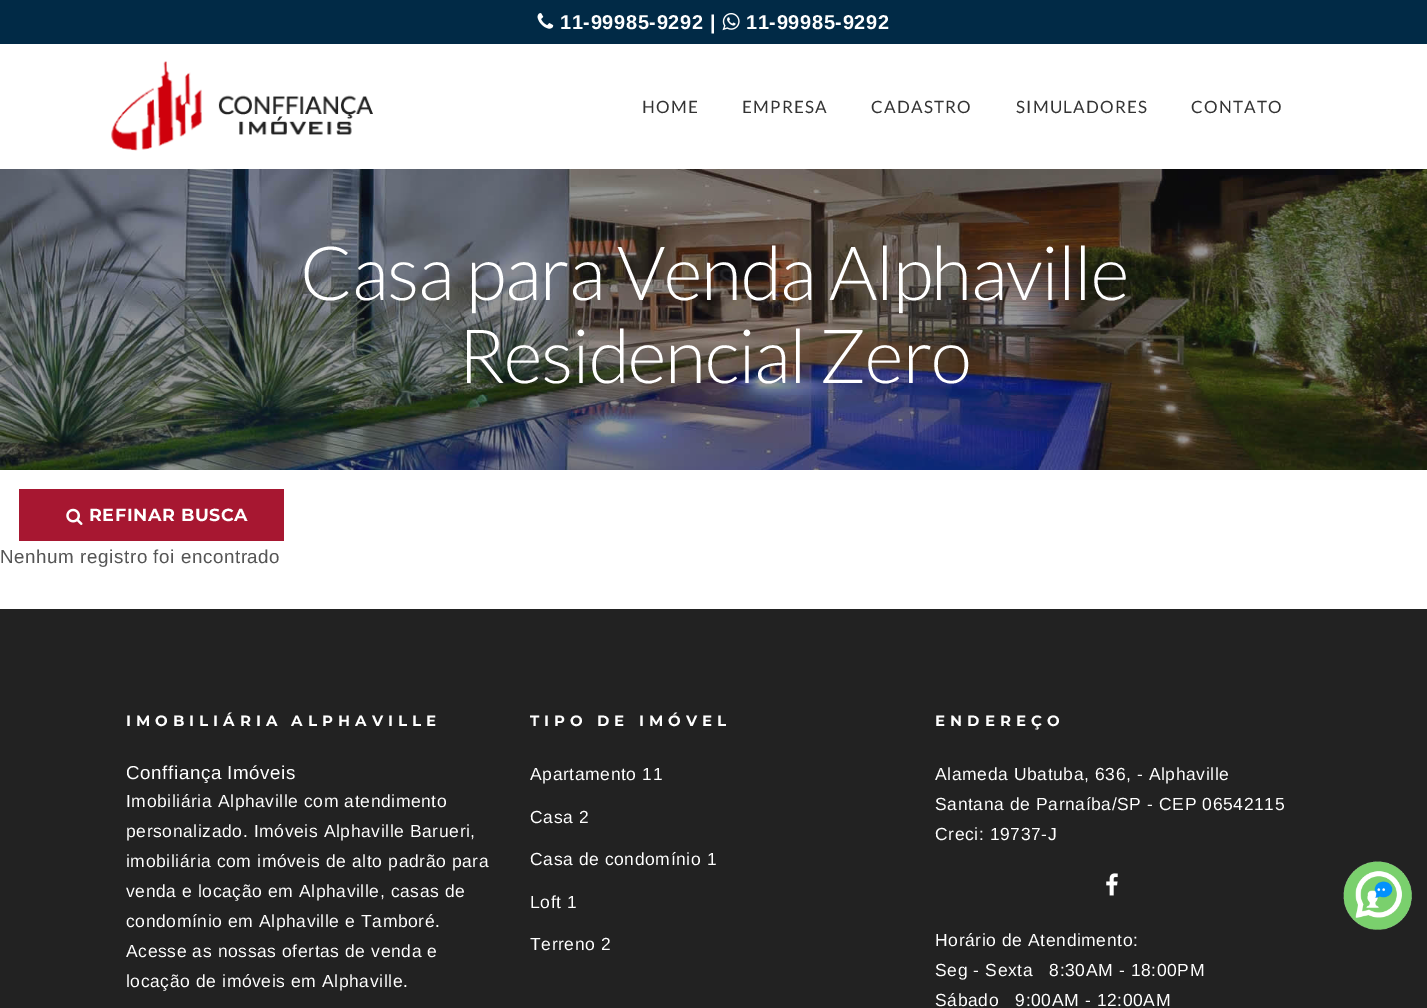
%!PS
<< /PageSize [1427 1008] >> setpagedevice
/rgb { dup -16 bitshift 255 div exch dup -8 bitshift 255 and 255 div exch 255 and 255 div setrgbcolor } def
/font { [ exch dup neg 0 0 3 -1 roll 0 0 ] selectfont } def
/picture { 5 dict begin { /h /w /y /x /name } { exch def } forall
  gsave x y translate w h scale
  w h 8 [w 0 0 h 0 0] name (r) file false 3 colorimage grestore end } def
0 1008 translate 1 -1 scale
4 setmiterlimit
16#FFFFFF rgb
0 0 1427 1008 rectfill
16#012A46 rgb
0 0 1427 44 rectfill
(pic1.raw) 537 13 17 16 picture
/LiberationSans-Bold 20 font
16#FFFFFF rgb
560 29 moveto 0.6 0 (11-99985-9292 |) ashow
(pic2.raw) 722 13 18 18 picture
746 29 moveto 0.6 0 (11-99985-9292) ashow
(pic3.raw) 111 61 262 90 picture
/Lato-Regular 17 font
16#333333 rgb
642 113 moveto 1.25 0 (HOME) ashow
742 113 moveto 1.25 0 (EMPRESA) ashow
871 113 moveto 1.25 0 (CADASTRO) ashow
1016 113 moveto 1.25 0 (SIMULADORES) ashow
1191 113 moveto 1.25 0 (CONTATO) ashow
(pic4.raw) 0 169 1427 301 picture
/Lato-Light 75 font
16#FFFFFF rgb
300 300 moveto -1.25 0 (Casa para Venda Alphaville) ashow
458 383 moveto -1.25 0 (Residencial Zero) ashow
16#A71731 rgb
19 489 265 52 rectfill
(pic5.raw) 66 508 17 17 picture
/Montserrat-Bold 17.5 font
16#FFFFFF rgb
89 521 moveto 0.6 0 (REFINAR BUSCA) ashow
/LiberationSans-Regular 18.75 font
16#555555 rgb
0 563 moveto 0.6 0 (Nenhum registro foi encontrado) ashow
16#222222 rgb
0 609 1427 399 rectfill
/Montserrat-Bold 15 font
16#FFFFFF rgb
126 726 moveto 5 0 (IMOBILIÁRIA ALPHAVILLE) ashow
/LiberationSans-Regular 18.75 font
126 779 moveto 0.6 0 (Conffiança Imóveis) ashow
/LiberationSans-Regular 17.5 font
126 807 moveto 0.6 0 (Imobiliária Alphaville com atendimento) ashow
126 837 moveto 0.6 0 (personalizado. Imóveis Alphaville Barueri,) ashow
126 867 moveto 0.6 0 (imobiliária com imóveis de alto padrão para) ashow
126 897 moveto 0.6 0 (venda e locação em Alphaville, casas de) ashow
126 927 moveto 0.6 0 (condomínio em Alphaville e Tamboré.) ashow
126 957 moveto 0.6 0 (Acesse as nossas ofertas de venda e) ashow
126 987 moveto 0.6 0 (locação de imóveis em Alphaville.) ashow
/Montserrat-Bold 15 font
530 726 moveto 5 0 (TIPO DE IMÓVEL) ashow
/LiberationSans-Regular 17.5 font
530 780 moveto 0.6 0 (Apartamento 11) ashow
530 823 moveto 0.6 0 (Casa 2) ashow
530 865 moveto 0.6 0 (Casa de condomínio 1) ashow
530 908 moveto 0.6 0 (Loft 1) ashow
530 950 moveto 0.6 0 (Terreno 2) ashow
/Montserrat-Bold 15 font
935 726 moveto 5 0 (ENDEREÇO) ashow
/LiberationSans-Regular 17.5 font
935 780 moveto 0.6 0 (Alameda Ubatuba, 636, - Alphaville) ashow
935 810 moveto 0.6 0 (Santana de Parnaíba/SP - CEP 06542115) ashow
935 840 moveto 0.6 0 (Creci: 19737-J) ashow
(pic6.raw) 1106 873 12 23 picture
935 946 moveto 0.6 0 (Horário de Atendimento:) ashow
935 976 moveto 0.6 0 (Seg - Sexta   8:30AM - 18:00PM) ashow
935 1006 moveto 0.6 0 (Sábado   9:00AM - 12:00AM) ashow
(pic7.raw) 1343 861 69 69 picture
showpage
